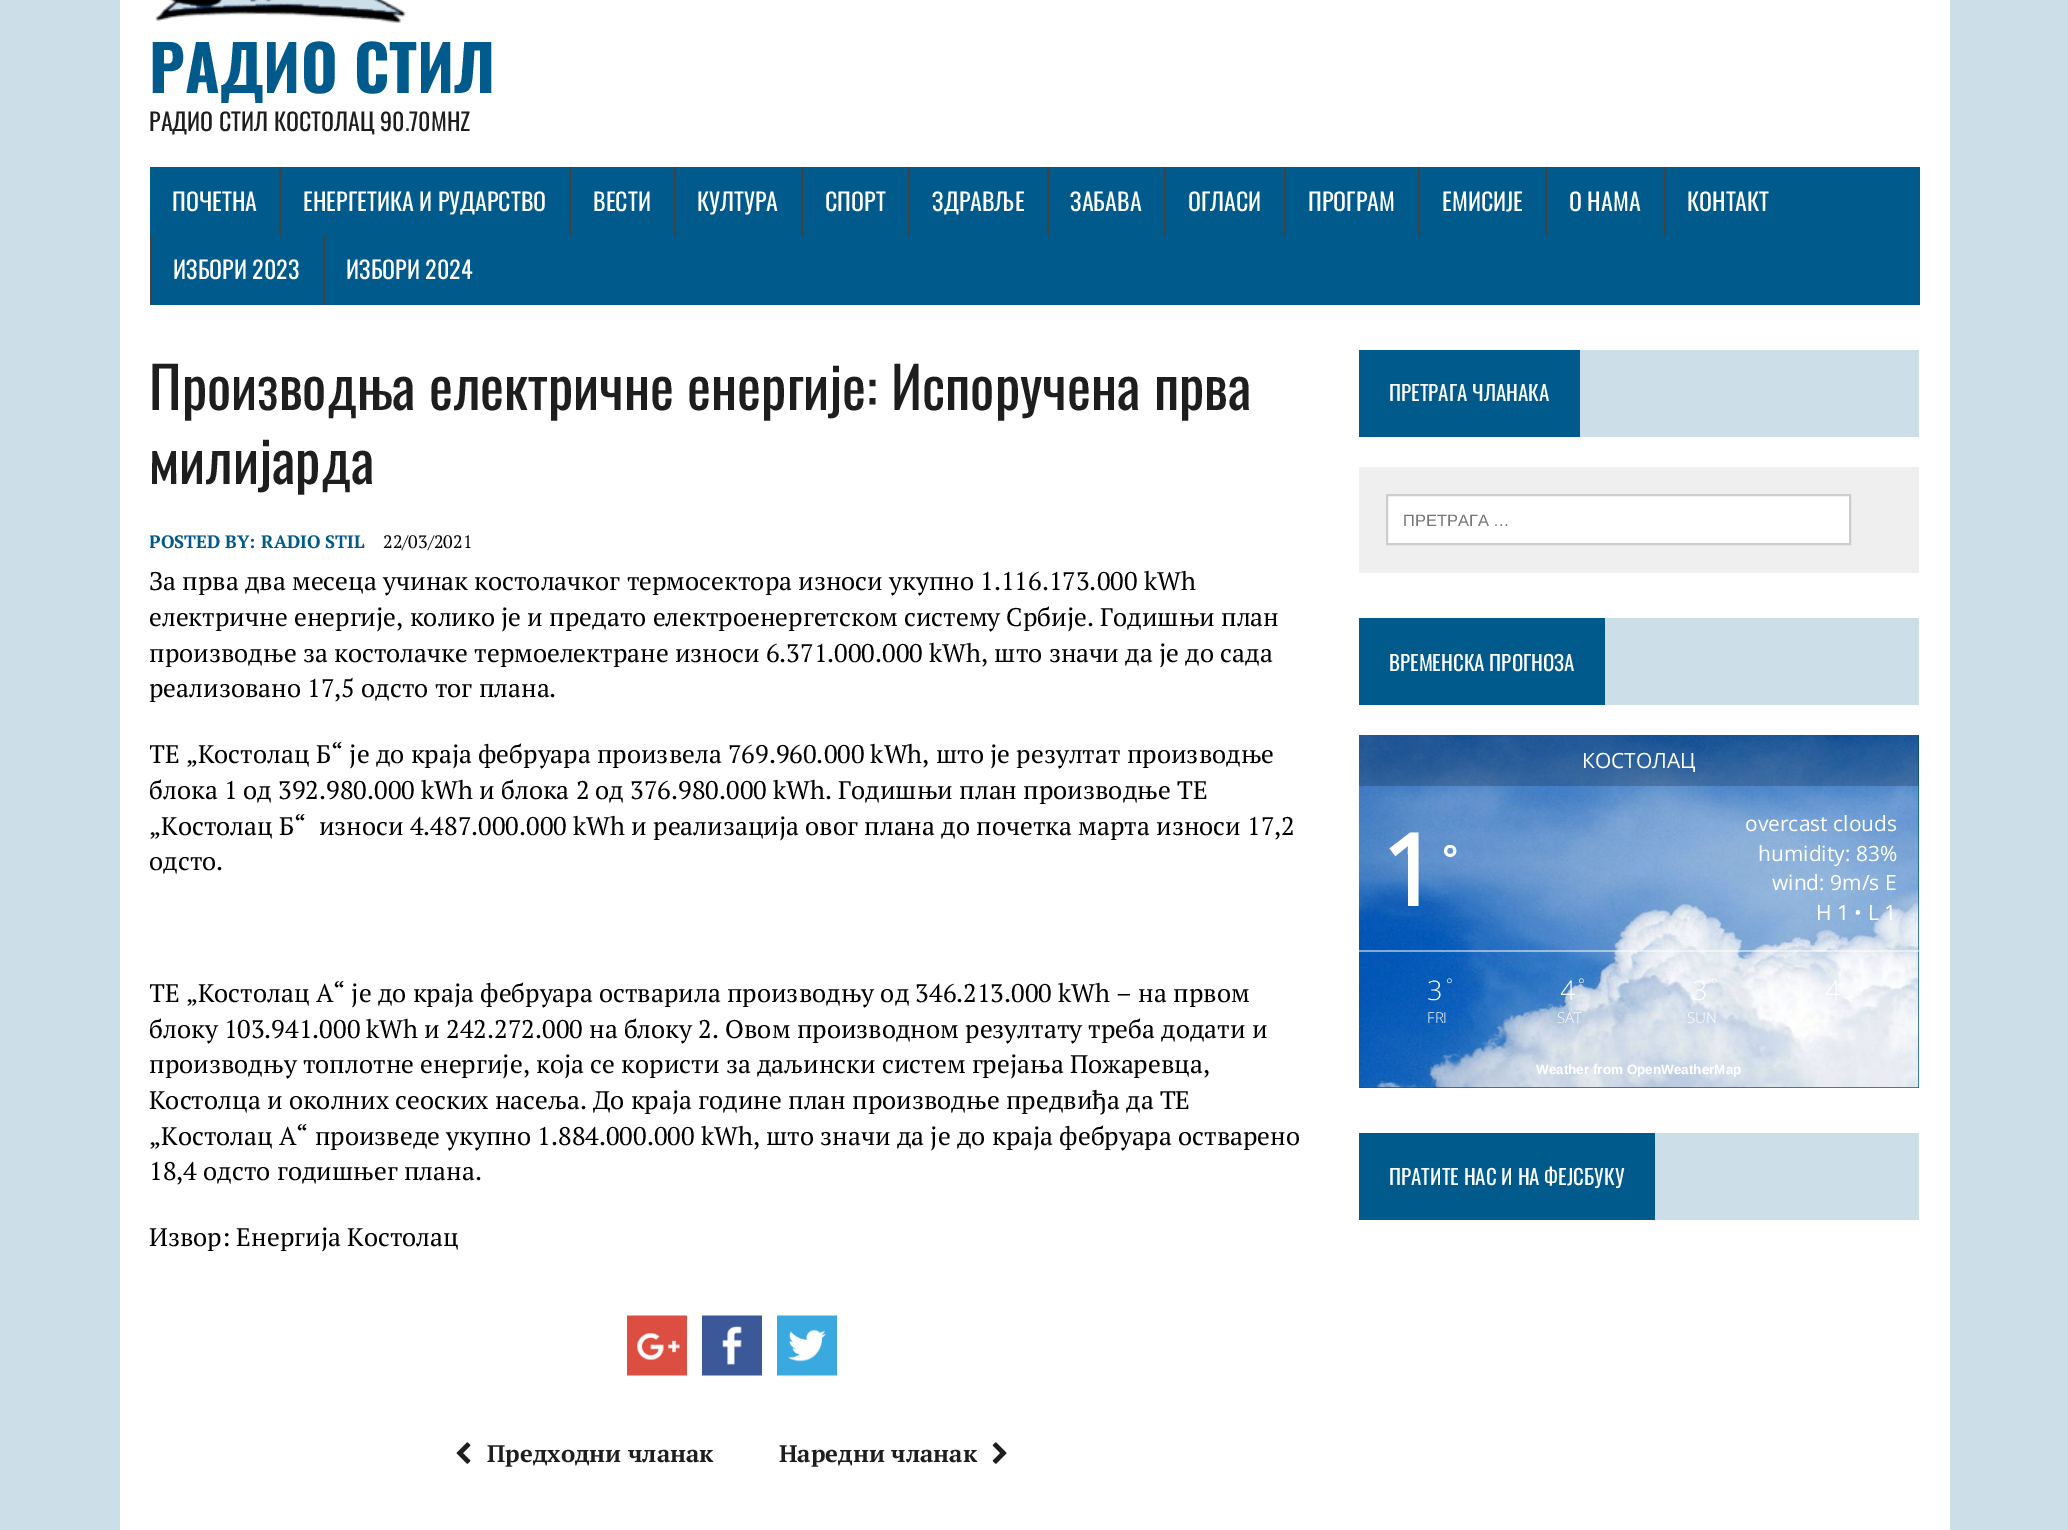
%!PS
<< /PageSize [2068 1530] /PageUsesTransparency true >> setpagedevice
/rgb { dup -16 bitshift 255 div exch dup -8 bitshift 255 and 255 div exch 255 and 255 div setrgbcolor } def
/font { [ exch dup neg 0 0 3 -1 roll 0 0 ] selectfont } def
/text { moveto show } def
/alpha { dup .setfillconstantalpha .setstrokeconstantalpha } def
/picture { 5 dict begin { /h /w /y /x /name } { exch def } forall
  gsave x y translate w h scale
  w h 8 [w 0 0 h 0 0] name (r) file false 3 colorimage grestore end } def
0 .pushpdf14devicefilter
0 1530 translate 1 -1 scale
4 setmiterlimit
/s1 { /Oswald-Bold 63 font 16#005A8C rgb } def
/s2 { /Oswald-Regular 24 font 16#1F1E1E rgb } def
/s3 { /Oswald-Regular 24 font 16#FFFFFF rgb } def
/s4 { /Oswald-Regular 57 font 16#1F1E1E rgb } def
/s5 { /PTSerif-Bold 18 font 16#005A8C rgb } def
/s6 { /PTSerif-Regular 18 font 16#000000 rgb } def
/s7 { /PTSerif-Regular 25.5 font 16#000000 rgb } def
/s8 { /PTSerif-Bold 24 font 16#1F1E1E rgb } def
/s9 { /Oswald-Regular 21 font 16#FFFFFF rgb } def
/s10 { /LiberationSans-Regular 16.5 font 16#757575 rgb } def
/s11 { /OpenSans-Regular 21 font 16#FFFFFF rgb } def
/s12 { /OpenSans-Bold 99 font 16#FFFFFF rgb } def
/s13 { /OpenSans-Bold 36 font 16#FFFFFF rgb } def
/s14 { /OpenSans-Light 27 font 16#FFFFFF rgb } def
/s15 { /OpenSans-Light 16 font 16#FFFFFF rgb } def
/s16 { /OpenSans-Light 15 font 16#FFFFFF rgb } def
/s17 { /LiberationSans-Bold 13.5 font 16#FFFFFF rgb } def
16#CCDEE8 rgb
0 0 2068 1530 rectfill
16#FFFFFF rgb
120 0 1830 1530 rectfill
(pic1.raw) 155 0 251 24 picture
s1
(РАДИО СТИЛ) 149 93 text
s2
(РАДИО СТИЛ КОСТОЛАЦ 90.70MHZ) 149 131 text
16#005A8C rgb
150 167 1770 138 rectfill
s3
(ПОЧЕТНА) 172 211 text
16#424242 rgb
279 167 2 69 rectfill
s3
(ЕНЕРГЕТИКА И РУДАРСТВО) 303 211 text
16#424242 rgb
569 167 2 69 rectfill
s3
(ВЕСТИ) 593 211 text
16#424242 rgb
674 167 2 69 rectfill
s3
(КУЛТУРА) 697 211 text
16#424242 rgb
801 167 2 69 rectfill
s3
(СПОРТ) 825 211 text
16#424242 rgb
908 167 2 69 rectfill
s3
(ЗДРАВЉЕ) 932 211 text
16#424242 rgb
1047 167 2 69 rectfill
s3
(ЗАБАВА) 1070 211 text
16#424242 rgb
1164 167 2 69 rectfill
s3
(ОГЛАСИ) 1188 211 text
16#424242 rgb
1284 167 2 69 rectfill
s3
(ПРОГРАМ) 1308 211 text
16#424242 rgb
1418 167 2 69 rectfill
s3
(ЕМИСИЈЕ) 1442 211 text
16#424242 rgb
1545 167 2 69 rectfill
s3
(О НАМА) 1569 211 text
16#424242 rgb
1664 167 2 69 rectfill
s3
(КОНТАКТ) 1687 211 text
16#424242 rgb
150 236 2 69 rectfill
s3
(ИЗБОРИ 2023) 173 279 text
16#424242 rgb
323 236 2 69 rectfill
s3
(ИЗБОРИ 2024) 346 279 text
s4
(Производња електричне енергије: Испоручена прва) 149 410 text
(милијарда) 149 484 text
gsave
150 350 1164 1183 rectclip
s5
(POSTED BY:) 149 548 text
grestore
s5
(RADIO STIL) 261 548 text
s6
(22/03/2021) 383 548 text
s7
(За прва два месеца учинак костолачког термосектора износи укупно 1.116.173.000 kWh) 149 590 text
(електричне енергије, колико је и предато електроенергетском систему Србије. Годишњи план) 149 626 text
(производње за костолачке термоелектране износи 6.371.000.000 kWh, што значи да је до сада) 149 662 text
(реализовано 17,5 одсто тог плана.) 149 697 text
gsave
150 350 1164 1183 rectclip
(ТЕ „Костолац Б“ је до краја фебруара произвела 769.960.000 kWh, што је резултат производње) 149 763 text
grestore
(блока 1 од 392.980.000 kWh и блока 2 од 376.980.000 kWh. Годишњи план производње ТЕ) 149 799 text
(„Костолац Б“  износи 4.487.000.000 kWh и реализација овог плана до почетка марта износи 17,2) 149 835 text
(одсто.) 149 870 text
gsave
150 350 1164 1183 rectclip
(ТЕ „Костолац А“ је до краја фебруара остварила производњу од 346.213.000 kWh – на првом) 149 1002 text
grestore
(блоку 103.941.000 kWh и 242.272.000 на блоку 2. Овом производном резултату треба додати и) 149 1038 text
(производњу топлотне енергије, која се користи за даљински систем грејања Пожаревца,) 149 1073 text
(Костолца и околних сеоских насеља. До краја године план производње предвиђа да ТЕ) 149 1109 text
(„Костолац А“ произведе укупно 1.884.000.000 kWh, што значи да је до краја фебруара остварено) 149 1145 text
(18,4 одсто годишњег плана.) 149 1180 text
(Извор: Енергија Костолац) 149 1246 text
(pic2.raw) 627 1315 60 61 picture
(pic3.raw) 702 1315 60 61 picture
(pic4.raw) 777 1315 60 61 picture
(pic5.raw) 456 1442 15 22 picture
s8
(Предходни чланак) 487 1462 text
(Наредни чланак) 779 1462 text
(pic6.raw) 992 1442 15 22 picture
16#CCDEE8 rgb
1580 350 339 87 rectfill
16#005A8C rgb
1359 350 221 87 rectfill
s9
(ПРЕТРАГА ЧЛАНАКА) 1389 401 text
16#EFEFEF rgb
1359 467 560 106 rectfill
16#FFFFFF rgb
1387 495 moveto 1850 495 lineto 1850 544 lineto 1387 544 lineto closepath gsave fill grestore
16#CDCDCD rgb
2 setlinewidth
stroke
s10
(ПРЕТРАГА …) 1403 526 text
16#CCDEE8 rgb
1605 618 314 87 rectfill
16#005A8C rgb
1359 618 246 87 rectfill
s9
(ВРЕМЕНСКА ПРОГНОЗА) 1389 671 text
16#005A8C rgb
1359 735 560 353 rectfill
(pic7.raw) 1359 735 560 353 picture
0.2 alpha
16#000000 rgb
1359 735 560 51 rectfill
1 alpha
s11
(КОСТОЛАЦ) 1582 768 text
s12
(1) 1381 906 text
s13
(°) 1442 872 text
s11
(overcast clouds) 1745 831 text
(humidity: 83%) 1758 861 text
(wind: 9m/s E) 1772 890 text
(H 1 • L 1) 1816 920 text
0.5 alpha
1359 950 560 2 rectfill
1 alpha
s14
(3) 1427 1000 text
s15
(°) 1446 990 text
s16
(FRI) 1427 1023 text
s14
(4) 1560 1000 text
s15
(°) 1578 990 text
s16
(SAT) 1557 1023 text
s14
(3) 1692 1000 text
s15
(°) 1711 990 text
s16
(SUN) 1687 1023 text
s14
(4) 1825 1000 text
s17
(Weather from OpenWeatherMap) 1536 1074 text
16#CCDEE8 rgb
1655 1133 264 87 rectfill
16#005A8C rgb
1359 1133 296 87 rectfill
s9
(ПРАТИТЕ НАС И НА ФЕЈСБУКУ) 1389 1185 text
.poppdf14devicefilter showpage
